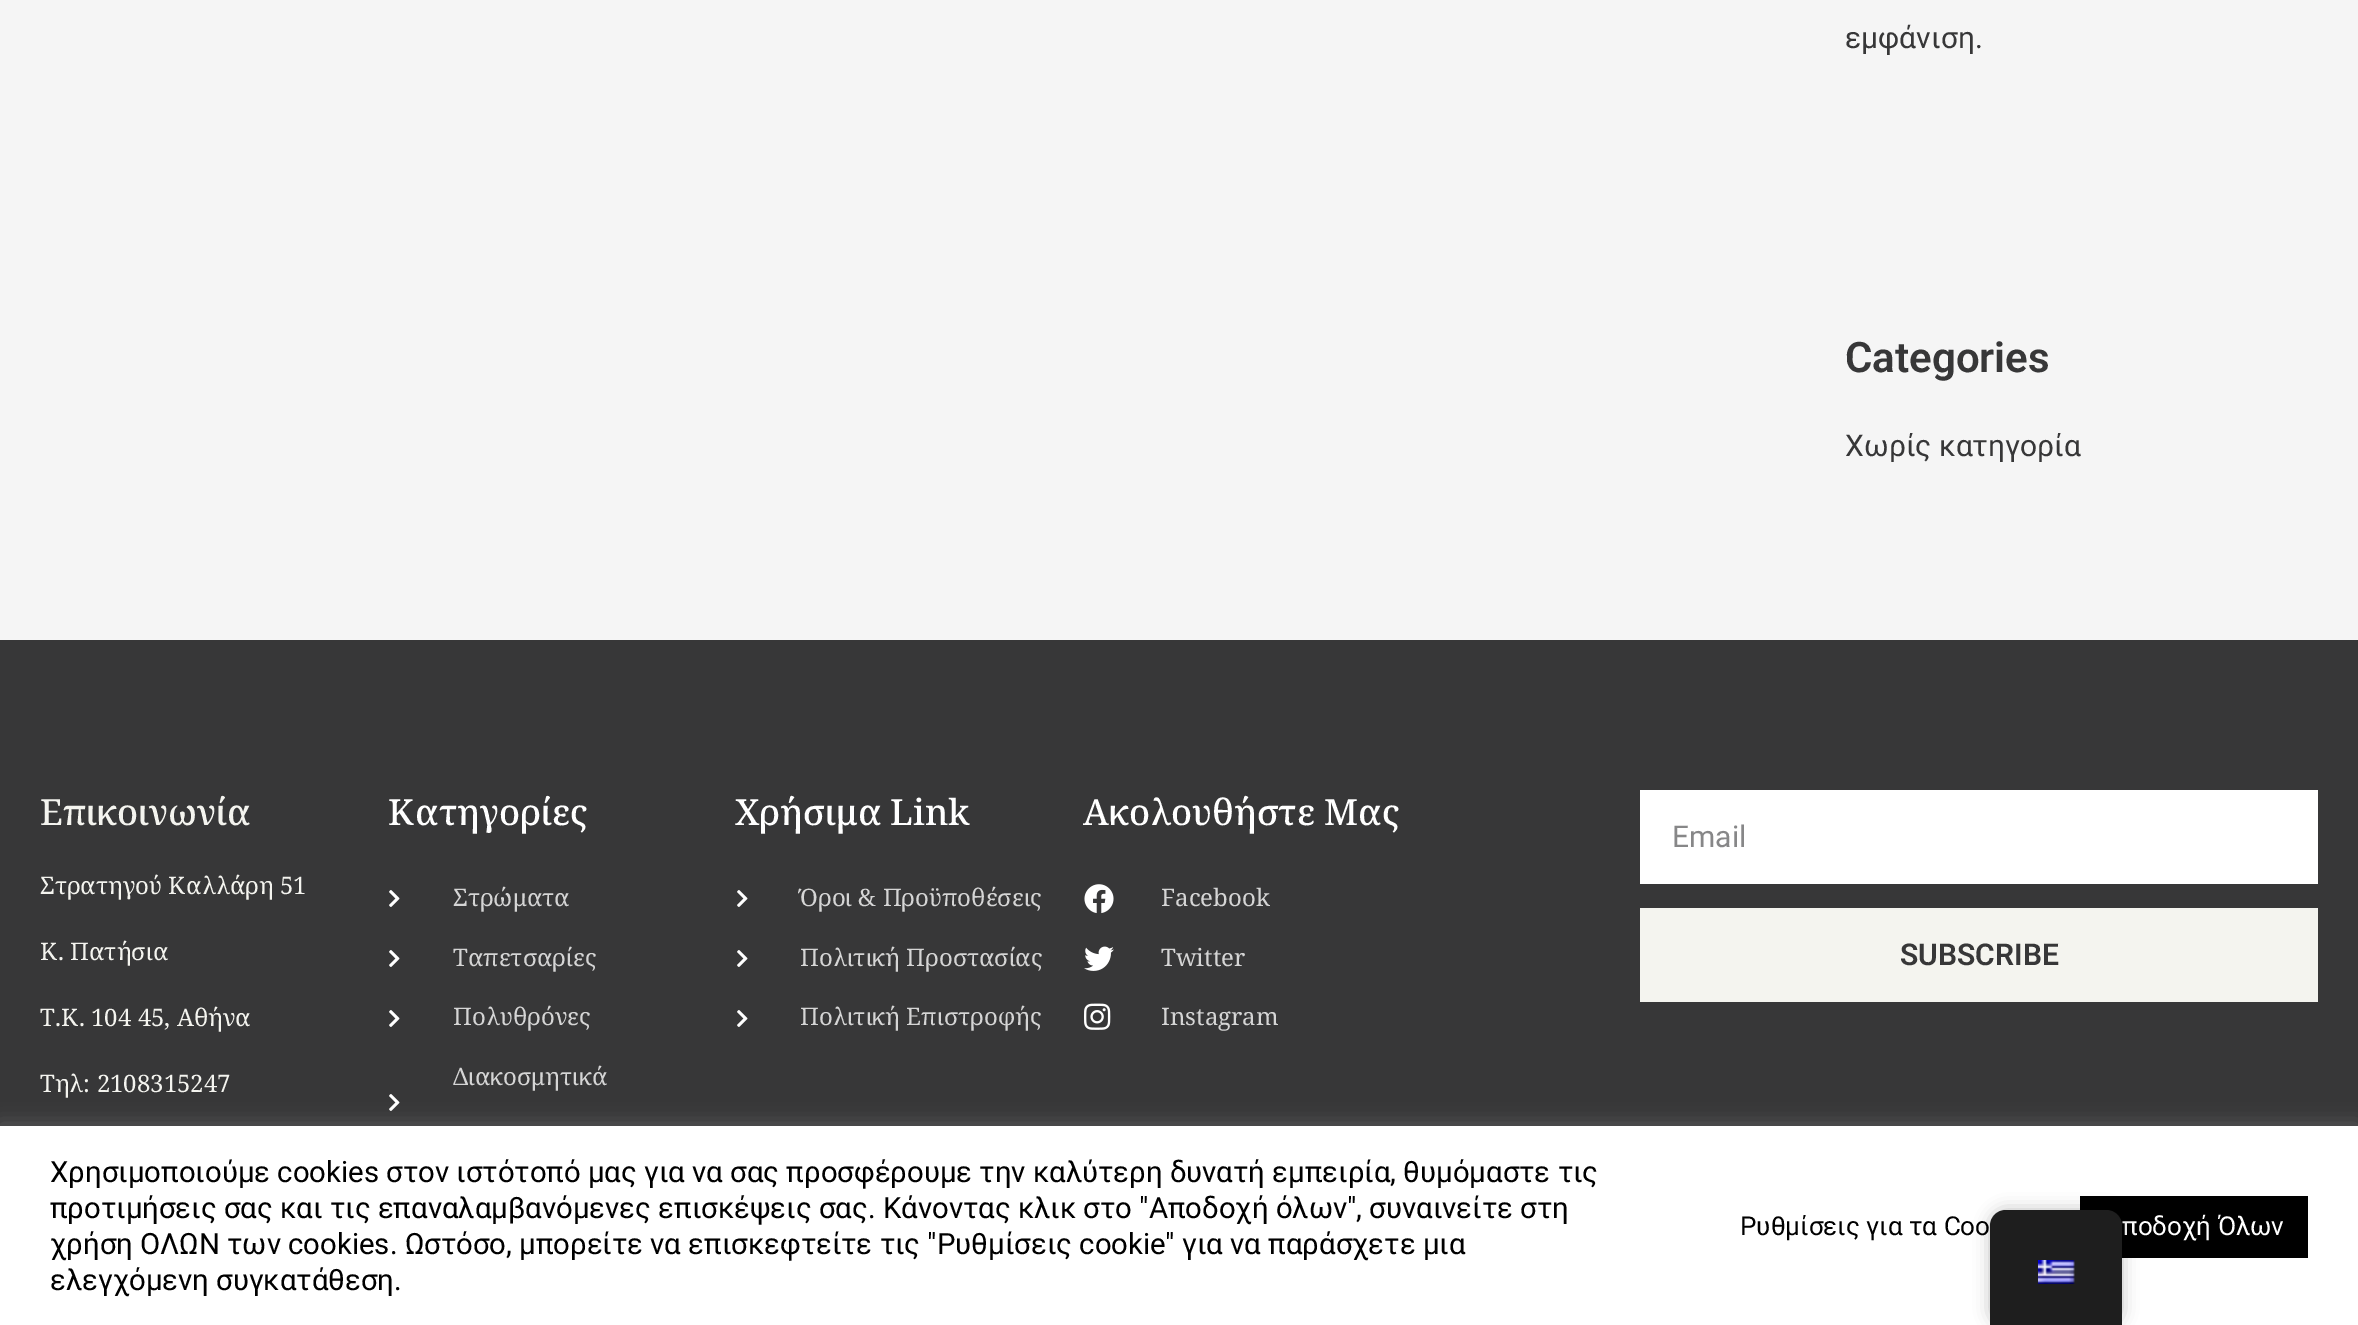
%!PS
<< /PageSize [2358 1325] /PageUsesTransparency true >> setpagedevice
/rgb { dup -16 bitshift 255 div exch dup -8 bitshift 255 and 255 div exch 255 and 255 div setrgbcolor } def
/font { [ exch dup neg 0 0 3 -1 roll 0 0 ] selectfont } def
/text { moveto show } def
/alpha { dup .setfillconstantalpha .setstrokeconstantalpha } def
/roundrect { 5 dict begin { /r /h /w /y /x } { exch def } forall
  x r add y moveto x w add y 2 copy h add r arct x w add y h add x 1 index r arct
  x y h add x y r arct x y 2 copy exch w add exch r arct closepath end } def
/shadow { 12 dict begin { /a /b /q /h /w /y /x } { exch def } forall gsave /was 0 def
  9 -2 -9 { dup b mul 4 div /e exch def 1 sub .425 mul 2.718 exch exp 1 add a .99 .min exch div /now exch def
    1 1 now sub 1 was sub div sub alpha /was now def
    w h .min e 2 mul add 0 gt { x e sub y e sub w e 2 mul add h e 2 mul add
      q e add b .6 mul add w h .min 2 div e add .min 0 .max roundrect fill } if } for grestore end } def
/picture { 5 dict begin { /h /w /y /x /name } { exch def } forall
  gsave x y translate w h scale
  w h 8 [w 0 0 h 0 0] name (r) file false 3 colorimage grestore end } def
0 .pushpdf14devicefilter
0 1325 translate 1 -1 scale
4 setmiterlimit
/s1 { /Roboto-Regular 30 font 16#373738 rgb } def
/s2 { /Roboto-SemiBold 42 font 16#373738 rgb } def
/s3 { /NotoSerif-Medium 36 font 16#F4F4EF rgb } def
/s4 { /NotoSerif-Regular 24 font 16#F4F4EF rgb } def
/s5 { /NotoSerif-Medium 36 font 16#FFFFFF rgb } def
/s6 { /NotoSerif-Regular 24 font 16#D5D5D5 rgb } def
/s7 { /Roboto-Regular 30 font 16#878788 rgb } def
/s8 { /Roboto-SemiBold 30 font 16#373738 rgb } def
/s9 { /Roboto-Regular 29.33 font 16#000000 rgb } def
/s10 { /Roboto-Regular 26 font 16#000000 rgb } def
/s11 { /Roboto-Regular 26 font 16#FFFFFF rgb } def
16#F5F5F5 rgb
0 0 2358 1325 rectfill
s1
(εμφάνιση.) 1845 48 text
s2
(Categories) 1845 372 text
s1
(Χωρίς κατηγορία) 1845 456 text
0 640 2358 486 rectfill
s3
(Επικοινωνία) 40 825 text
s4
(Στρατηγού Καλλάρη 51) 40 894 text
(Κ. Πατήσια) 40 960 text
(Τ.Κ. 104 45, Αθήνα) 40 1026 text
(Τηλ: 2108315247) 40 1092 text
s5
(Κατηγορίες) 388 825 text
(pic1.raw) 389 890 11 17 picture
s6
(Στρώματα) 453 906 text
(pic1.raw) 389 950 11 17 picture
(Ταπετσαρίες) 453 966 text
(pic1.raw) 389 1010 11 17 picture
(Πολυθρόνες) 453 1025 text
(Διακοσμητικά) 453 1085 text
(pic1.raw) 389 1094 11 17 picture
s5
(Χρήσιμα Link) 735 825 text
(pic1.raw) 737 890 11 17 picture
s6
(Όροι & Προϋποθέσεις) 800 906 text
(pic1.raw) 737 950 11 17 picture
(Πολιτική Προστασίας) 800 966 text
(pic1.raw) 737 1010 11 17 picture
(Πολιτική Επιστροφής) 800 1025 text
s5
(Ακολουθήστε Μας) 1083 825 text
(pic2.raw) 1084 884 30 30 picture
s6
(Facebook) 1161 906 text
(pic3.raw) 1084 946 30 25 picture
(Twitter) 1161 966 text
(pic4.raw) 1084 1003 27 27 picture
(Instagram) 1161 1025 text
16#FFFFFF rgb
1640 790 678 94 rectfill
s7
(Email) 1672 847 text
16#F4F4EF rgb
1640 908 678 94 rectfill
s8
(SUBSCRIBE) 1900 965 text
16#ACABAB rgb
0 1124 2358 200 0 10 0.3 shadow
16#FFFFFF rgb
0 1126 2358 199 rectfill
s9
(Χρησιμοποιούμε cookies στον ιστότοπό μας για να σας προσφέρουμε την καλύτερη δυνατή εμπειρία, θυμόμαστε τις) 50 1182 text
(προτιμήσεις σας και τις επαναλαμβανόμενες επισκέψεις σας. Κάνοντας κλικ στο "Αποδοχή όλων", συναινείτε στη) 50 1218 text
(χρήση ΟΛΩΝ των cookies. Ωστόσο, μπορείτε να επισκεφτείτε τις "Ρυθμίσεις cookie" για να παράσχετε μια) 50 1254 text
(ελεγχόμενη συγκατάθεση.) 50 1290 text
s10
(Ρυθμίσεις για τα Coo) 1740 1235 text
2080 1196 228 62 rectfill
s11
(ποδοχή Όλων) 2122 1235 text
16#000000 rgb
1990 1210 132 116 16 8 0.25 shadow
16#1E1E1E rgb
2006 1210 moveto 2106 1210 lineto 2115 1210 2122 1217 2122 1226 curveto 2122 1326 lineto 1990 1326 lineto 1990 1226 lineto 1990 1217 1997 1210 2006 1210 curveto closepath fill
(pic5.raw) 2038 1260 37 24 picture
.poppdf14devicefilter showpage
